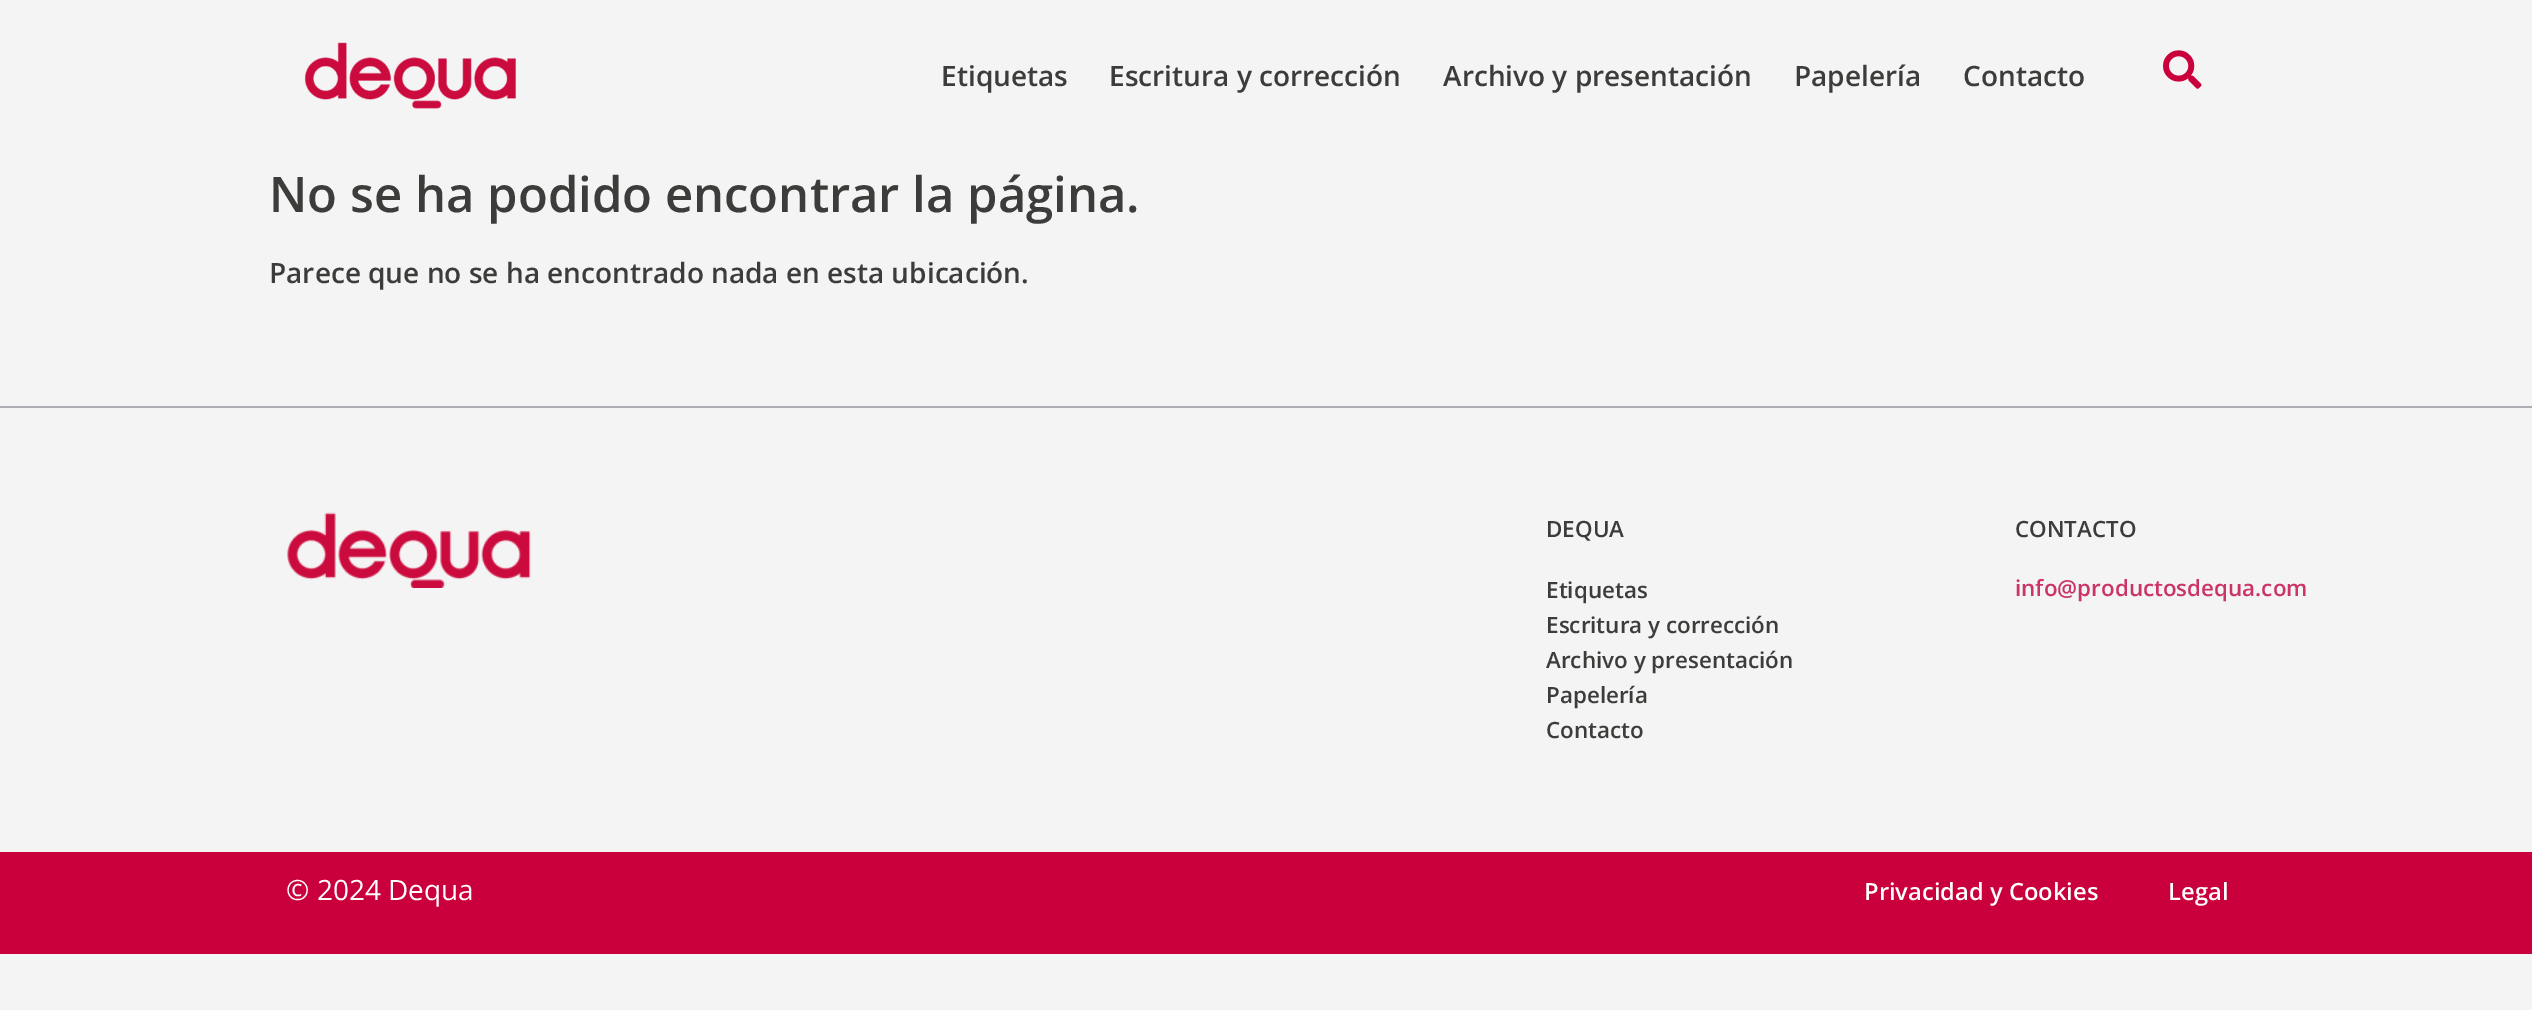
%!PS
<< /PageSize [2532 1010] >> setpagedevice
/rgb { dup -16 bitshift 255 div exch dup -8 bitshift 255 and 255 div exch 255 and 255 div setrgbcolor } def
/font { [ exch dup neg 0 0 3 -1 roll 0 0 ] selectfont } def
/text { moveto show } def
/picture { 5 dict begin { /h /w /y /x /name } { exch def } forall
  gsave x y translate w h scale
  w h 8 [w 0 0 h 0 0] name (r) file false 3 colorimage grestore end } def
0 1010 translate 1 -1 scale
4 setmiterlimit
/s1 { /OpenSans-SemiBold 28 font 16#3C3C3B rgb } def
/s2 { /OpenSans-SemiBold 49 font 16#3C3C3B rgb } def
/s3 { /OpenSans-SemiBold 22.4 font 16#3C3C3B rgb } def
/s4 { /OpenSans-SemiBold 22.4 font 16#CC3366 rgb } def
/s5 { /OpenSans-Regular 28 font 16#FFFFFF rgb } def
/s6 { /OpenSans-SemiBold 23.75 font 16#FFFFFF rgb } def
16#F4F4F4 rgb
0 0 2532 1010 rectfill
(pic1.raw) 304 42 212 67 picture
s1
(Etiquetas) 941 86 text
(Escritura y corrección) 1109 86 text
(Archivo y presentación) 1443 86 text
(Papelería) 1794 86 text
(Contacto) 1963 86 text
(pic2.raw) 2163 50 39 39 picture
s2
(No se ha podido encontrar la página.) 269 212 text
s1
(Parece que no se ha encontrado nada en esta ubicación.) 269 283 text
16#AEADB3 rgb
0 406 2532 2 rectfill
(pic3.raw) 287 512 244 76 picture
s3
(DEQUA) 1546 537 text
(Etiquetas) 1546 598 text
(Escritura y corrección) 1546 633 text
(Archivo y presentación) 1546 668 text
(Papelería) 1546 703 text
(Contacto) 1546 738 text
(CONTACTO) 2015 537 text
s4
(info@productosdequa.com) 2015 596 text
16#CA003D rgb
0 852 2532 102 rectfill
s5
(© 2024 Dequa) 286 900 text
s6
(Privacidad y Cookies) 1864 900 text
(Legal) 2168 900 text
showpage
